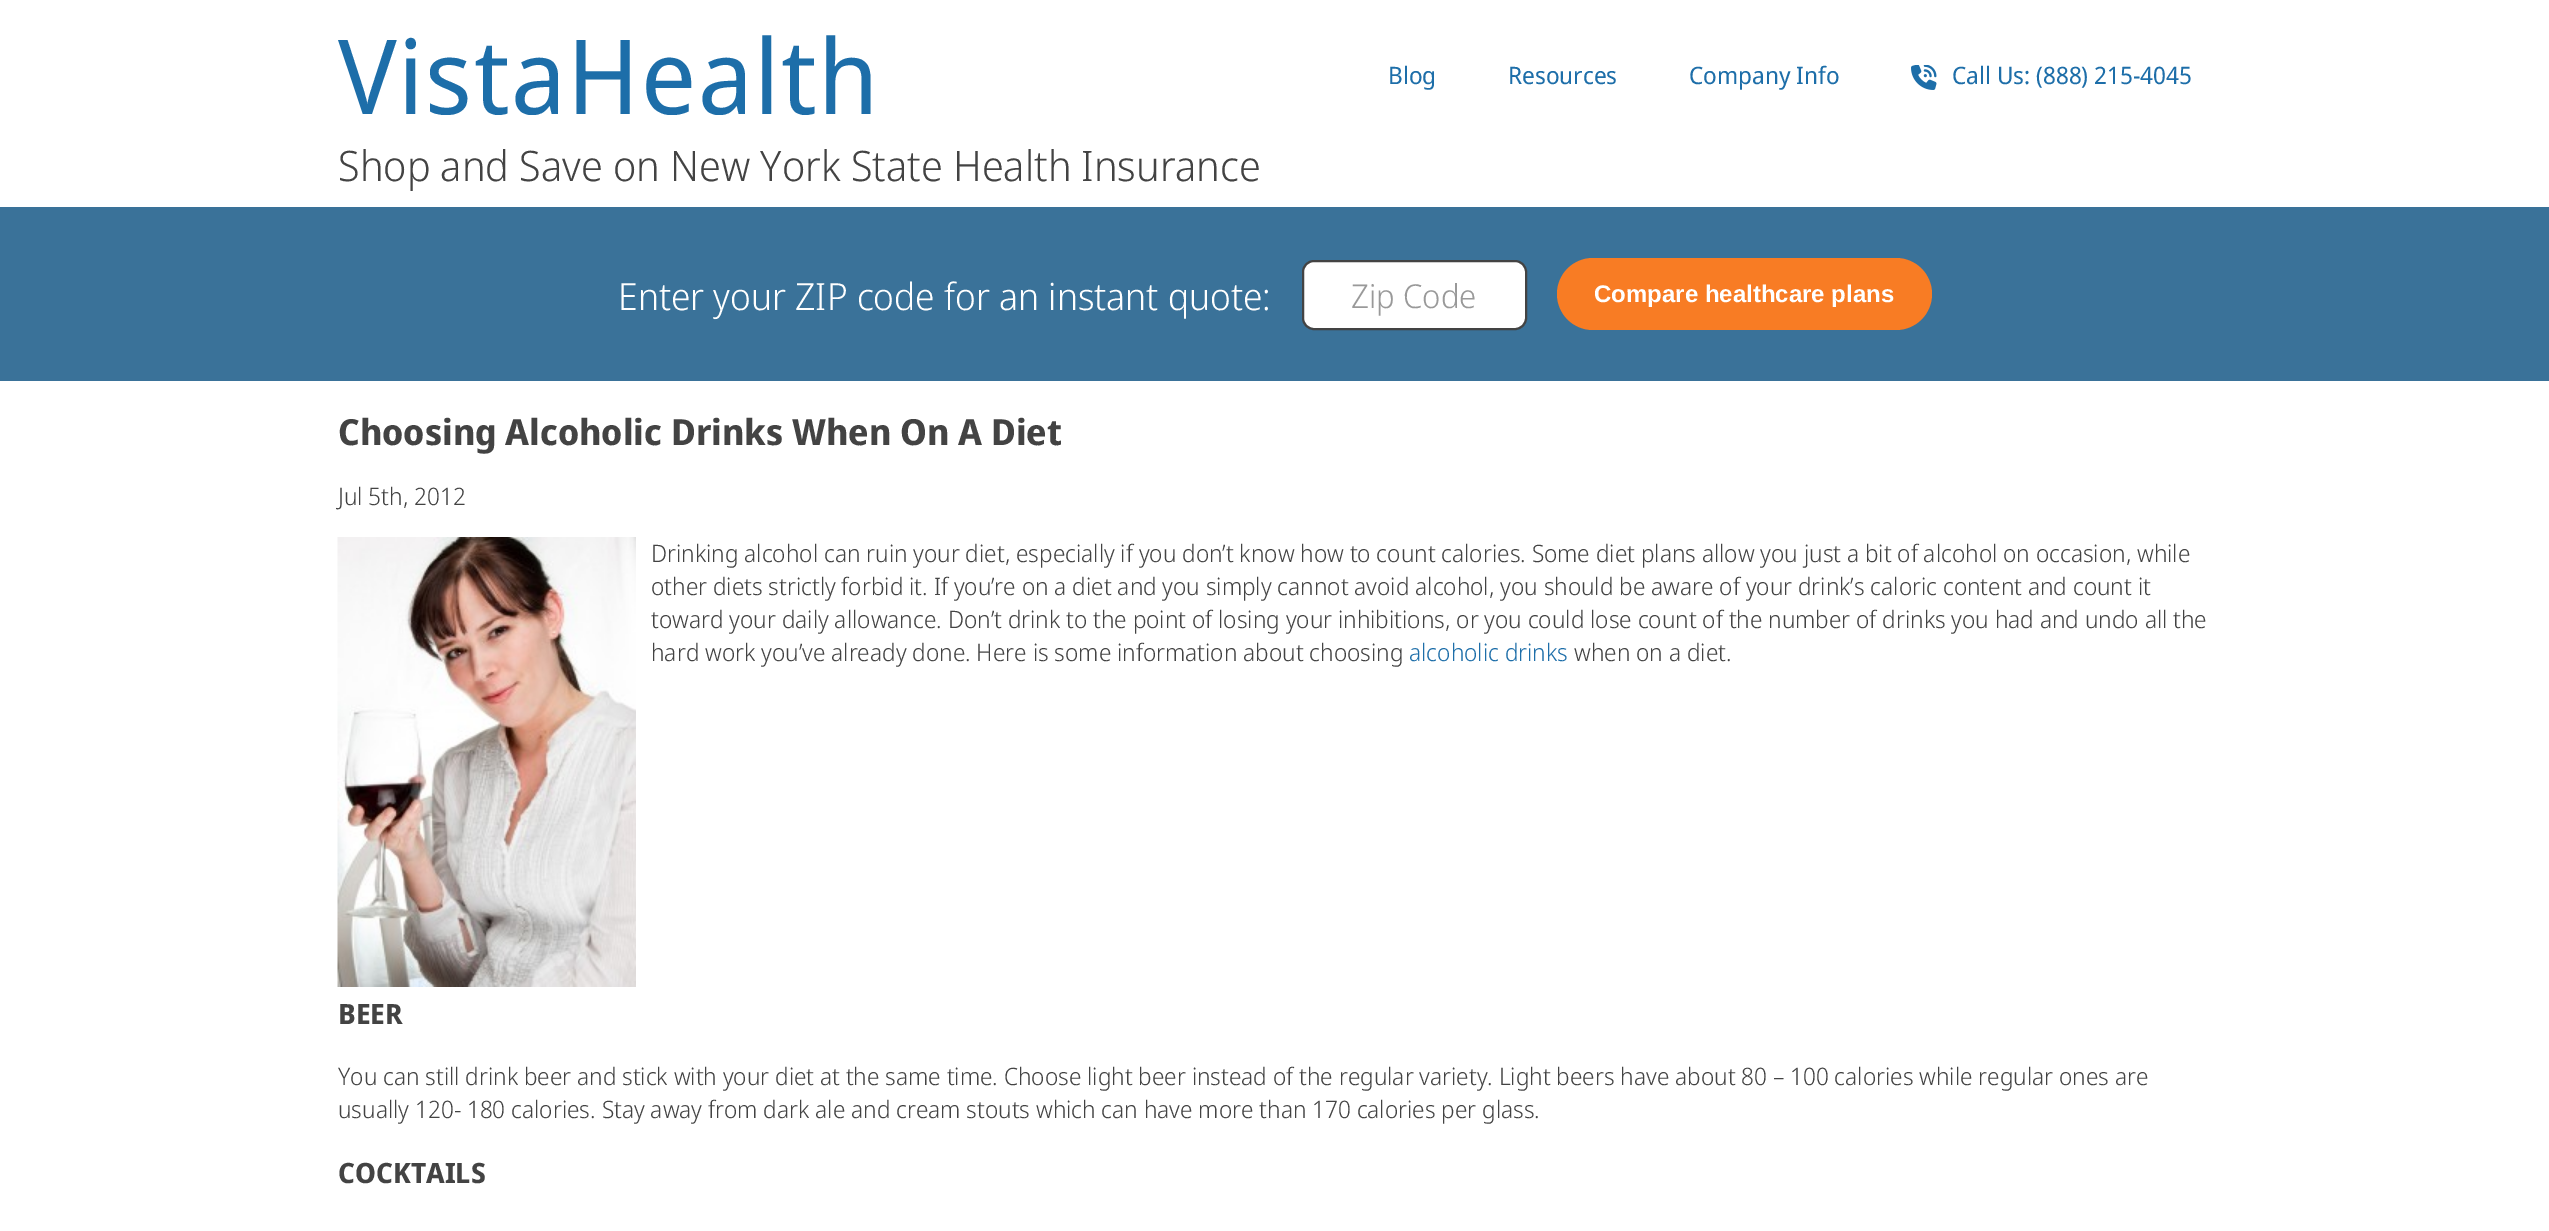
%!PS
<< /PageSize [2549 1231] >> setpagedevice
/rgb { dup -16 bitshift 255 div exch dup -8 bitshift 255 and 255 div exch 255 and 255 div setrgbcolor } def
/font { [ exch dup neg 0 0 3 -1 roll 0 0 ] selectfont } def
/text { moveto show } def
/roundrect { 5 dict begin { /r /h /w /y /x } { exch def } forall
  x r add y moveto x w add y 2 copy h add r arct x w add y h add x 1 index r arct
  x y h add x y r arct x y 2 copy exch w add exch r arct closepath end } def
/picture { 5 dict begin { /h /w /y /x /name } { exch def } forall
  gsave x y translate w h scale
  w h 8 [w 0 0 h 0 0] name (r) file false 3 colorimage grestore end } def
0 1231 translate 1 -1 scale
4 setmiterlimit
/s1 { /NotoSansDisplay-Regular 24 font 16#1D6EA9 rgb } def
/s2 { /NotoSansDisplay-Light 42 font 16#434343 rgb } def
/s3 { /NotoSansDisplay-Light 37.5 font 16#FFFFFF rgb } def
/s4 { /NotoSansDisplay-Light 33 font 16#999999 rgb } def
/s5 { /LiberationSans-Bold 24 font 16#FFFFFF rgb } def
/s6 { /NotoSansDisplay-Bold 36 font 16#434343 rgb } def
/s7 { /NotoSansDisplay-Light 24 font 16#434343 rgb } def
/s8 { /NotoSansDisplay-Light 24 font 16#1D6EA9 rgb } def
/s9 { /NotoSansDisplay-Bold 28 font 16#434343 rgb } def
16#FFFFFF rgb
0 0 2549 1231 rectfill
/NotoSansDisplay-Regular 103.5 font
16#1D6EA9 rgb
338 114 moveto 1.5 0 (VistaHealth) ashow
s1
(Blog) 1388 84 text
(Resources) 1508 84 text
(Company Info) 1689 84 text
(pic1.raw) 1911 65 26 25 picture
(Call Us: \(888\) 215-4045) 1952 84 text
s2
(Shop and Save on New York State Health Insurance) 338 181 text
16#3A7299 rgb
0 207 2549 36 rectfill
0 243 2549 138 rectfill
s3
(Enter your ZIP code for an instant quote:) 618 310 text
1303 261 223 68 11 roundrect gsave fill grestore
16#434343 rgb
2 setlinewidth
stroke
s4
(Zip Code) 1351 308 text
16#F87C24 rgb
1557 258 375 72 36 roundrect fill
s5
(Compare healthcare plans) 1594 302 text
s6
(Choosing Alcoholic Drinks When On A Diet) 338 445 text
s7
(Jul 5th, 2012) 338 505 text
(pic2.raw) 337 537 299 450 picture
(Drinking alcohol can ruin your diet, especially if you don’t know how to count calories. Some diet plans allow you just a bit of alcohol on occasion, while) 651 562 text
(other diets strictly forbid it. If you’re on a diet and you simply cannot avoid alcohol, you should be aware of your drink’s caloric content and count it) 651 595 text
(toward your daily allowance. Don’t drink to the point of losing your inhibitions, or you could lose count of the number of drinks you had and undo all the) 651 628 text
(hard work you’ve already done. Here is some information about choosing) 651 661 text
s8
(alcoholic drinks) 1409 661 text
s7
(when on a diet.) 1574 661 text
s9
(BEER) 338 1024 text
s7
(You can still drink beer and stick with your diet at the same time. Choose light beer instead of the regular variety. Light beers have about 80 – 100 calories while regular ones are) 338 1085 text
(usually 120- 180 calories. Stay away from dark ale and cream stouts which can have more than 170 calories per glass.) 338 1118 text
s9
(COCKTAILS) 338 1183 text
showpage
